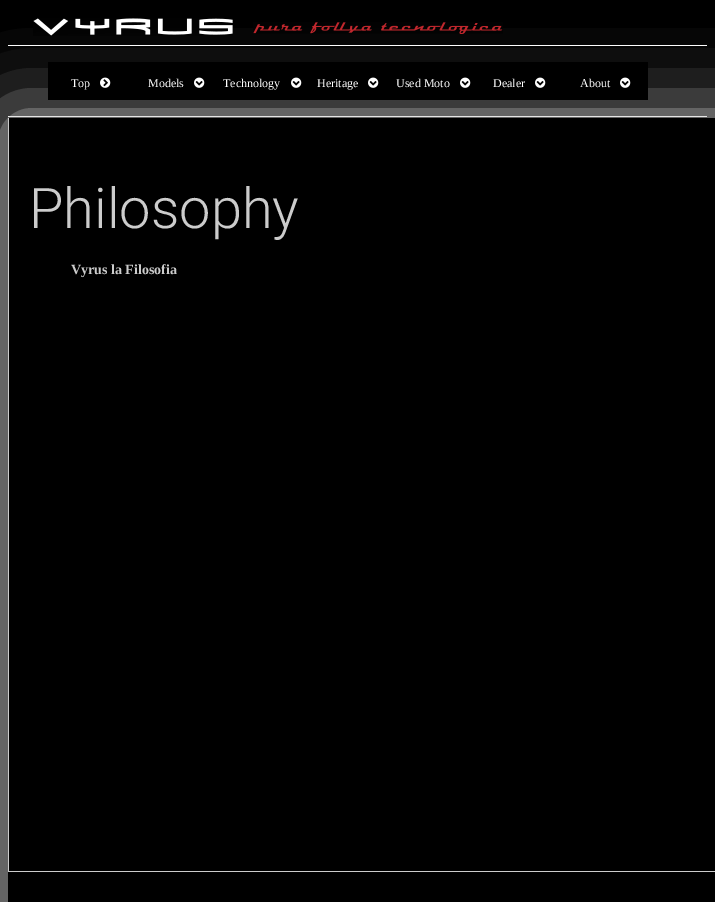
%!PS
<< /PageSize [715 902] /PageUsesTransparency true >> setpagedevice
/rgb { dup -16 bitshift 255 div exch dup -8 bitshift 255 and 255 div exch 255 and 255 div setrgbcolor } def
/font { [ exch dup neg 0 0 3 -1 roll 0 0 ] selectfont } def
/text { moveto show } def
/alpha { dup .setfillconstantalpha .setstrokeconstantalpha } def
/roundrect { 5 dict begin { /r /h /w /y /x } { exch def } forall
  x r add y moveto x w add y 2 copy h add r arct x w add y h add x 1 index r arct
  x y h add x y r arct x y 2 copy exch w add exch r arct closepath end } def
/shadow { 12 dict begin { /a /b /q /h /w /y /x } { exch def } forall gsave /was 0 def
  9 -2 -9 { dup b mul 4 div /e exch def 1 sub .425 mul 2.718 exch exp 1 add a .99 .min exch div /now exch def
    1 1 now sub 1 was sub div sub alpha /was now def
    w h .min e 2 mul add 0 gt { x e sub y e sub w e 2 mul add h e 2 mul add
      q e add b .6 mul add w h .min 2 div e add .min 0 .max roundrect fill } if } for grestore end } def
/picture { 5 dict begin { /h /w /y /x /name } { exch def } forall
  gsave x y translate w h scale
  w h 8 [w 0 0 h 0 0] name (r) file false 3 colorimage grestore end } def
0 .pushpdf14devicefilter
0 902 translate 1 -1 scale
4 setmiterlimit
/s1 { /LiberationSerif-Regular 12 font 16#FFFFFF rgb } def
/s2 { /Roboto-Light 56 font 16#CCCCCC rgb } def
/s3 { /LiberationSerif-Bold 14 font 16#CCCCCC rgb } def
16#000000 rgb
0 0 715 902 rectfill
16#FFFFFF rgb
8 45 699 1 rectfill
8 116 699 1 rectfill
gsave
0 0 moveto 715 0 lineto 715 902 lineto 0 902 lineto closepath 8 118 moveto 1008 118 lineto 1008 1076 lineto 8 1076 lineto closepath eoclip newpath
16#CCCCCC rgb
8 118 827 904 0 40 1 shadow
grestore
(pic1.raw) 33 18 200 18 picture
(pic2.raw) 253 22 250 12 picture
16#000000 rgb
48 62 600 38 rectfill
s1
(Top) 71 87 text
(pic3.raw) 100 77 11 11 picture
(Models) 148 87 text
(pic4.raw) 194 77 11 11 picture
(Technology) 223 87 text
(pic4.raw) 291 77 11 11 picture
(Heritage) 317 87 text
(pic4.raw) 368 77 11 11 picture
(Used Moto) 396 87 text
(pic4.raw) 460 77 11 11 picture
(Dealer) 493 87 text
(pic4.raw) 535 77 11 11 picture
(About) 580 87 text
(pic4.raw) 620 77 11 11 picture
16#CCCCCC rgb
8 118 1 753 rectfill
s2
(Philosophy) 29 228 text
s3
(Vyrus la Filosofia) 71 274 text
8 871 707 1 rectfill
.poppdf14devicefilter showpage
